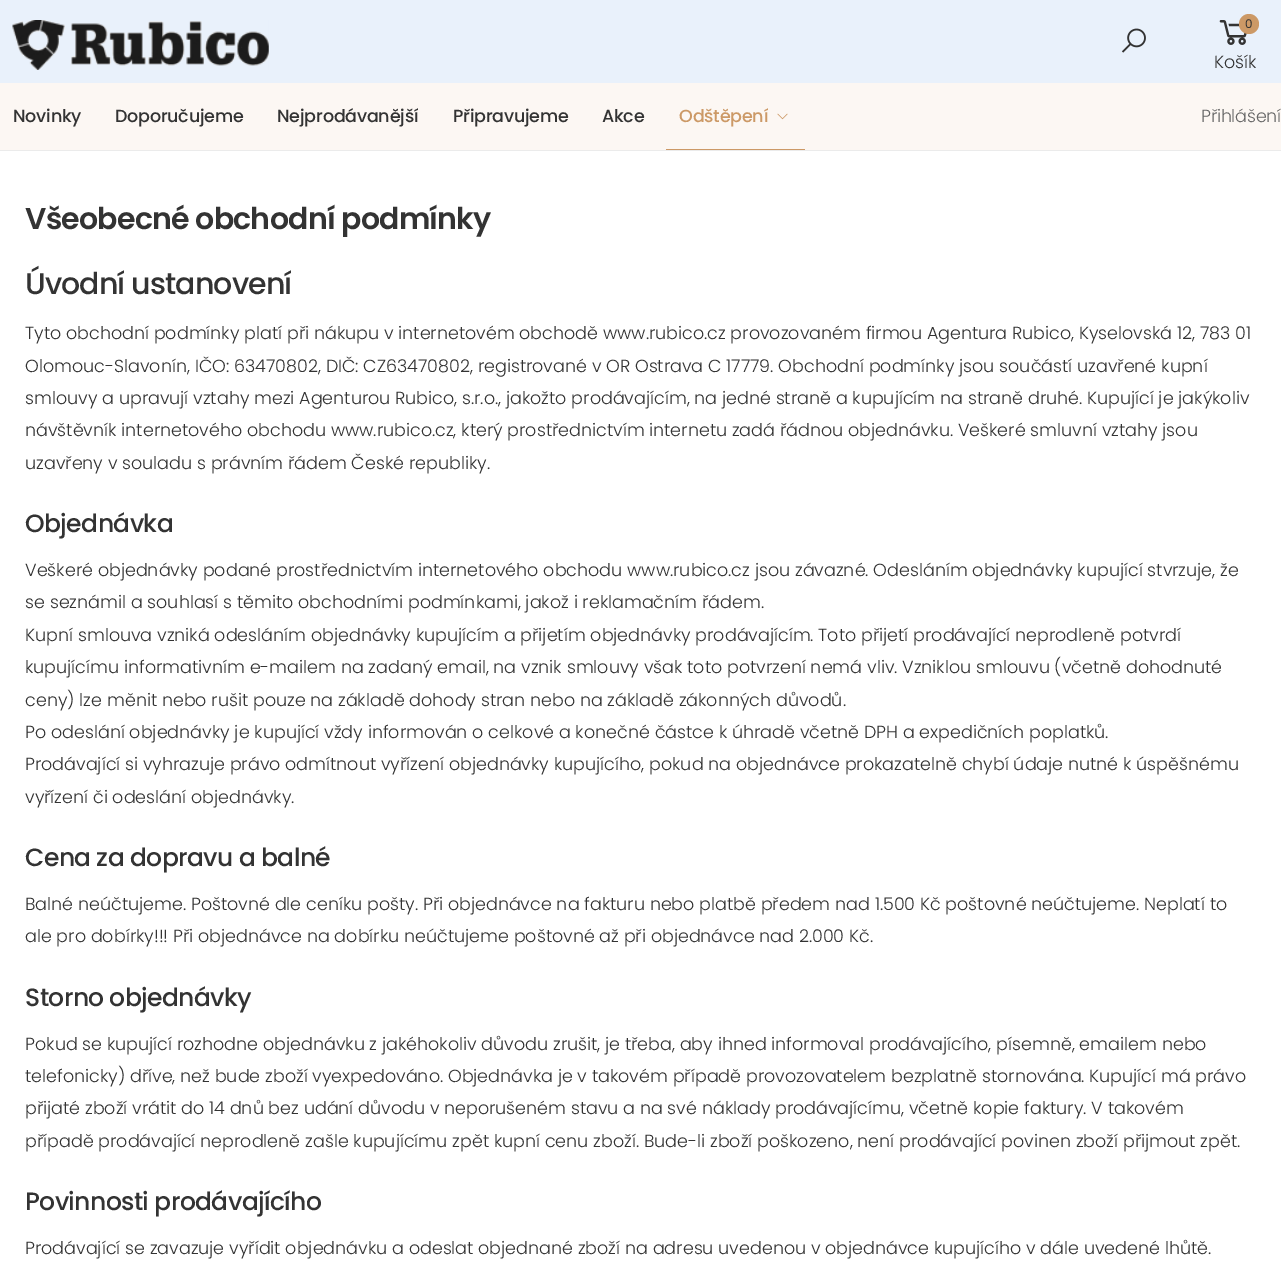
%!PS
<< /PageSize [1281 1275] >> setpagedevice
/rgb { dup -16 bitshift 255 div exch dup -8 bitshift 255 and 255 div exch 255 and 255 div setrgbcolor } def
/font { [ exch dup neg 0 0 3 -1 roll 0 0 ] selectfont } def
/text { moveto show } def
/circle { newpath 0 360 arc closepath } def
/picture { 5 dict begin { /h /w /y /x /name } { exch def } forall
  gsave x y translate w h scale
  w h 8 [w 0 0 h 0 0] name (r) file false 3 colorimage grestore end } def
0 1275 translate 1 -1 scale
4 setmiterlimit
/s1 { /Poppins-Regular 12 font 16#333333 rgb } def
/s2 { /Poppins-Light 17.5 font 16#333333 rgb } def
16#FFFFFF rgb
0 0 1281 1275 rectfill
16#E9F1FB rgb
0 0 1281 83 rectfill
(pic1.raw) 12 20 257 50 picture
(pic2.raw) 1121 28 25 25 picture
(pic3.raw) 1219 20 28 25 picture
16#CC9966 rgb
1249 24 10 circle fill
s1
(0) 1245 28 text
s2
(Košík) 1214 68 text
16#FCF7F3 rgb
0 83 1281 67 rectfill
16#EBEBEB rgb
0 150 1281 1 rectfill
/Poppins-Medium 17.5 font
16#333333 rgb
13 122 moveto -0.2 0 (Novinky) ashow
115 122 moveto -0.2 0 (Doporučujeme) ashow
277 122 moveto -0.2 0 (Nejprodávanější) ashow
453 122 moveto -0.2 0 (Připravujeme) ashow
602 122 moveto -0.2 0 (Akce) ashow
16#CC9966 rgb
679 122 moveto -0.2 0 (Odštěpení) ashow
(pic4.raw) 777 113 11 7 picture
666 149 139 1 rectfill
/Poppins-Light 17.5 font
16#666666 rgb
1201 122 moveto -0.2 0 (Přihlášení) ashow
/Poppins-SemiBold 30 font
16#333333 rgb
25 229 moveto -0.75 0 (Všeobecné obchodní podmínky) ashow
/Poppins-Medium 30 font
25 294 moveto -0.9 0 (Úvodní ustanovení) ashow
s2
(Tyto obchodní podmínky platí při nákupu v internetovém obchodě www.rubico.cz provozovaném firmou Agentura Rubico, Kyselovská 12, 783 01) 25 339 text
(Olomouc-Slavonín, IČO: 63470802, DIČ: CZ63470802, registrované v OR Ostrava C 17779. Obchodní podmínky jsou součástí uzavřené kupní) 25 372 text
(smlouvy a upravují vztahy mezi Agenturou Rubico, s.r.o., jakožto prodávajícím, na jedné straně a kupujícím na straně druhé. Kupující je jakýkoliv) 25 404 text
(návštěvník internetového obchodu www.rubico.cz, který prostřednictvím internetu zadá řádnou objednávku. Veškeré smluvní vztahy jsou) 25 436 text
(uzavřeny v souladu s právním řádem České republiky.) 25 469 text
/Poppins-Medium 25 font
25 532 moveto -0.6 0 (Objednávka) ashow
s2
(Veškeré objednávky podané prostřednictvím internetového obchodu www.rubico.cz jsou závazné. Odesláním objednávky kupující stvrzuje, že) 25 576 text
(se seznámil a souhlasí s těmito obchodními podmínkami, jakož i reklamačním řádem.) 25 608 text
(Kupní smlouva vzniká odesláním objednávky kupujícím a přijetím objednávky prodávajícím. Toto přijetí prodávající neprodleně potvrdí) 25 641 text
(kupujícímu informativním e-mailem na zadaný email, na vznik smlouvy však toto potvrzení nemá vliv. Vzniklou smlouvu \(včetně dohodnuté) 25 673 text
(ceny\) lze měnit nebo rušit pouze na základě dohody stran nebo na základě zákonných důvodů.) 25 706 text
(Po odeslání objednávky je kupující vždy informován o celkové a konečné částce k úhradě včetně DPH a expedičních poplatků.) 25 738 text
(Prodávající si vyhrazuje právo odmítnout vyřízení objednávky kupujícího, pokud na objednávce prokazatelně chybí údaje nutné k úspěšnému) 25 770 text
(vyřízení či odeslání objednávky.) 25 803 text
/Poppins-Medium 25 font
25 866 moveto -0.6 0 (Cena za dopravu a balné) ashow
s2
(Balné neúčtujeme. Poštovné dle ceníku pošty. Při objednávce na fakturu nebo platbě předem nad 1.500 Kč poštovné neúčtujeme. Neplatí to) 25 910 text
(ale pro dobírky!!! Při objednávce na dobírku neúčtujeme poštovné až při objednávce nad 2.000 Kč.) 25 942 text
/Poppins-Medium 25 font
25 1006 moveto -0.6 0 (Storno objednávky) ashow
s2
(Pokud se kupující rozhodne objednávku z jakéhokoliv důvodu zrušit, je třeba, aby ihned informoval prodávajícího, písemně, emailem nebo) 25 1050 text
(telefonicky\) dříve, než bude zboží vyexpedováno. Objednávka je v takovém případě provozovatelem bezplatně stornována. Kupující má právo) 25 1082 text
(přijaté zboží vrátit do 14 dnů bez udání důvodu v neporušeném stavu a na své náklady prodávajícímu, včetně kopie faktury. V takovém) 25 1114 text
(případě prodávající neprodleně zašle kupujícímu zpět kupní cenu zboží. Bude-li zboží poškozeno, není prodávající povinen zboží přijmout zpět.) 25 1147 text
/Poppins-Medium 25 font
25 1210 moveto -0.6 0 (Povinnosti prodávajícího) ashow
s2
(Prodávající se zavazuje vyřídit objednávku a odeslat objednané zboží na adresu uvedenou v objednávce kupujícího v dále uvedené lhůtě.) 25 1254 text
showpage
